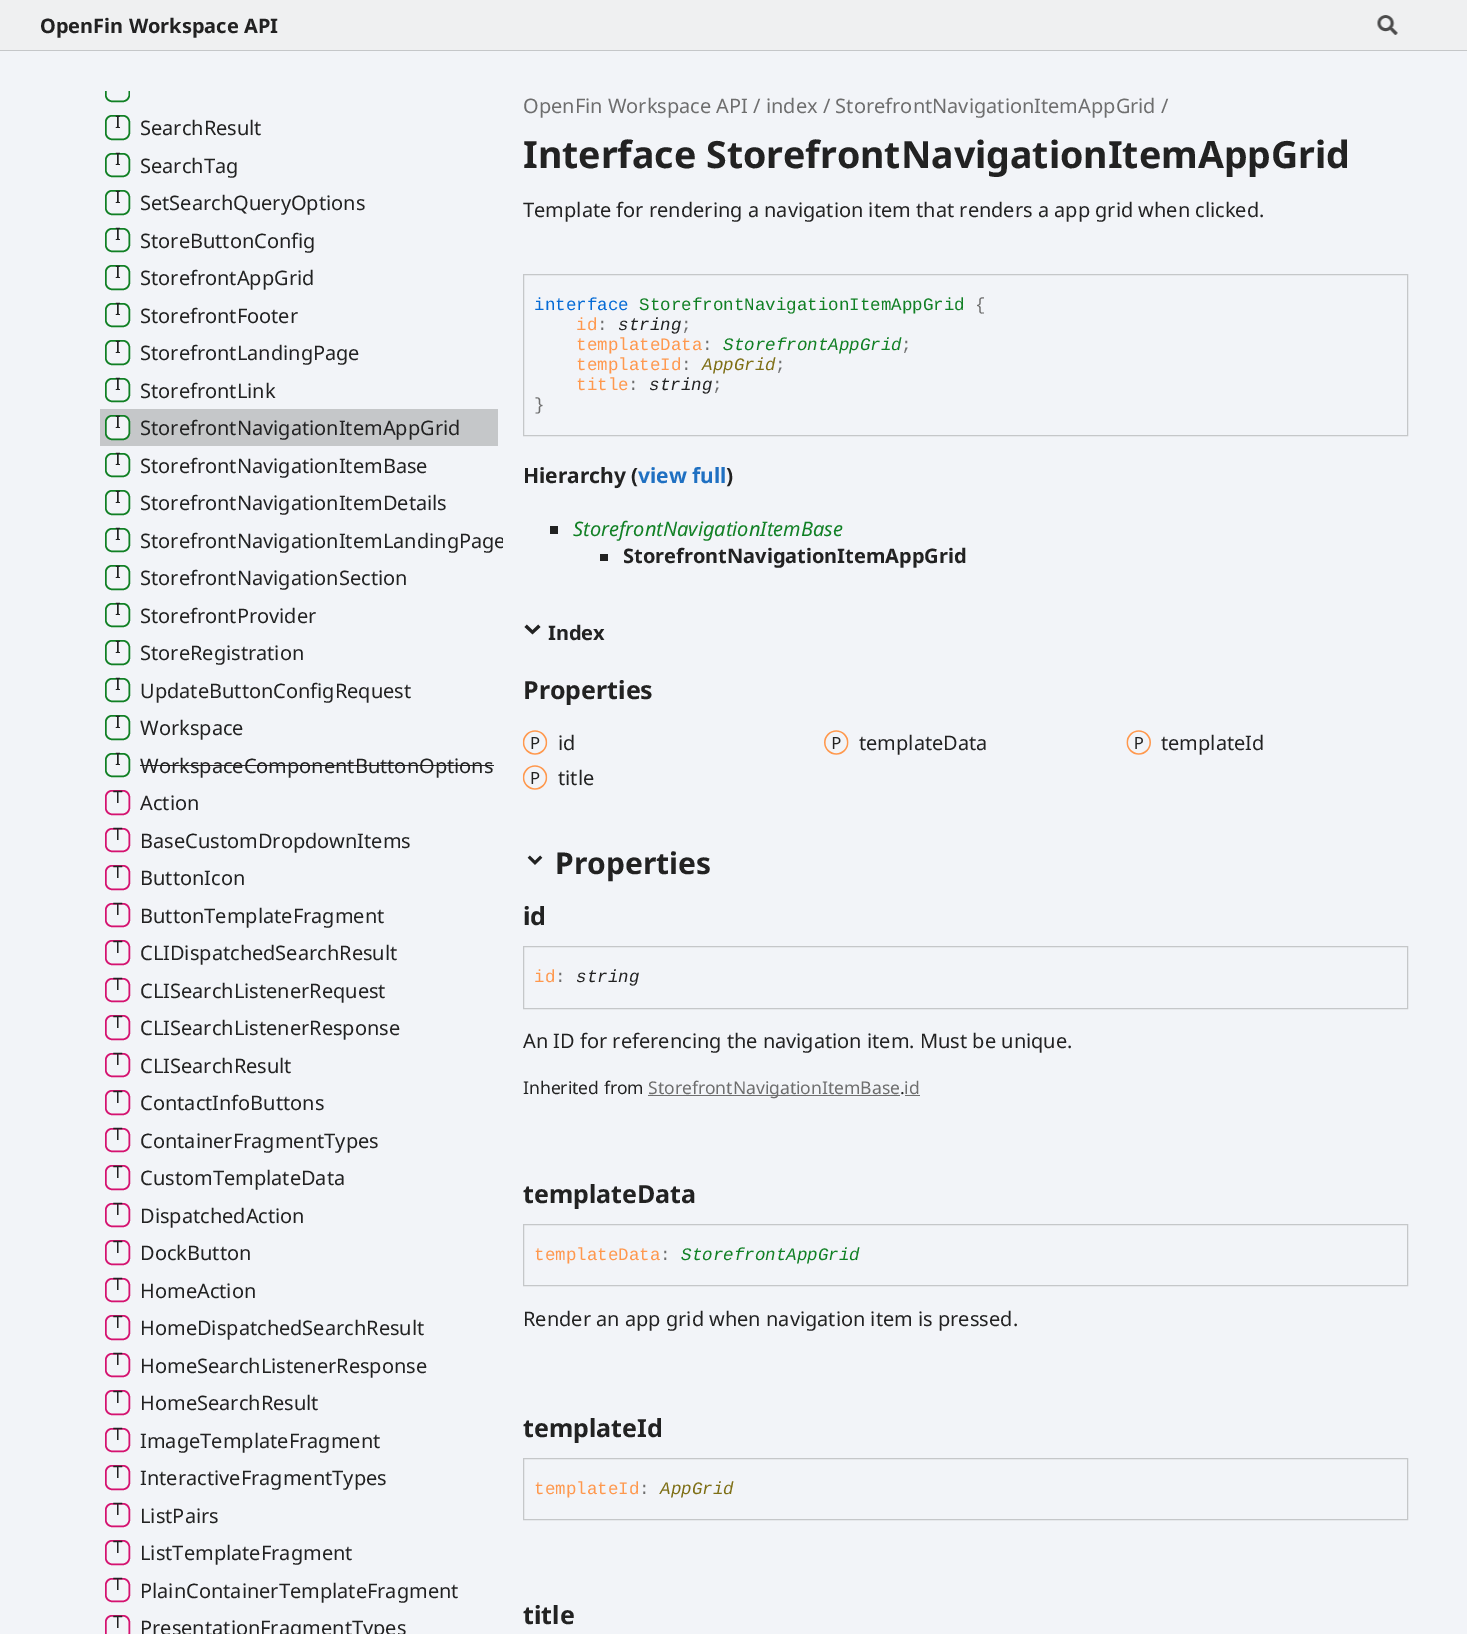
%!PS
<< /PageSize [1467 1634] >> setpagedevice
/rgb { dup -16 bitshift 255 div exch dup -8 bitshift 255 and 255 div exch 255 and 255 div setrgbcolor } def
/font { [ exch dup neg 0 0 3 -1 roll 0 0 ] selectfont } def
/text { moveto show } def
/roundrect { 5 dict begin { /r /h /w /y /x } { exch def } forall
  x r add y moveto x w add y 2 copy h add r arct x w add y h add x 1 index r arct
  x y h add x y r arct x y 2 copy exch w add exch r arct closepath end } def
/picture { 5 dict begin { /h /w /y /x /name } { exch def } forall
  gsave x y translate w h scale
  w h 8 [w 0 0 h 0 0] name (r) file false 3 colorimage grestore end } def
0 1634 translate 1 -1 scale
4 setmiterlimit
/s1 { /NotoSans-Bold 20 font 16#222222 rgb } def
/s2 { /NotoSans-Regular 17 font 16#222222 rgb } def
/s3 { /NotoSans-Regular 20 font 16#222222 rgb } def
/s4 { /NotoSans-Regular 20 font 16#6E6E6E rgb } def
/s5 { /NotoSans-Bold 37.5 font 16#222222 rgb } def
/s6 { /LiberationMono-Regular 17.5 font 16#056BD6 rgb } def
/s7 { /LiberationMono-Regular 17.5 font 16#108024 rgb } def
/s8 { /LiberationMono-Regular 17.5 font 16#6E6E6E rgb } def
/s9 { /LiberationMono-Regular 17.5 font 16#FF984D rgb } def
/s10 { /LiberationMono-Italic 17.5 font 16#222222 rgb } def
/s11 { /LiberationMono-Italic 17.5 font 16#108024 rgb } def
/s12 { /LiberationMono-Italic 17.5 font 16#7E6F15 rgb } def
/s13 { /NotoSans-Bold 21 font 16#222222 rgb } def
/s14 { /NotoSans-Bold 21 font 16#1F70C2 rgb } def
/s15 { /NotoSans-Italic 20 font 16#108024 rgb } def
/s16 { /NotoSans-Bold 25 font 16#222222 rgb } def
/s17 { /NotoSans-Bold 30 font 16#222222 rgb } def
/s18 { /NotoSans-Regular 17.5 font 16#222222 rgb } def
/s19 { /NotoSans-Regular 17.5 font 16#6E6E6E rgb } def
16#F2F4F8 rgb
0 0 1467 1634 rectfill
16#EFF0F1 rgb
0 0 1467 50 rectfill
16#C5C7C9 rgb
0 50 1467 1 rectfill
s1
(OpenFin Workspace API) 40 33 text
(pic1.raw) 1377 15 21 20 picture
gsave
105 91 25 12 rectclip
16#108024 rgb
1.5 setlinewidth
105.75 78.75 23.5 22.5 6.25 roundrect stroke
grestore
16#108024 rgb
1.5 setlinewidth
105.75 115.75 23.5 23.5 6.25 roundrect stroke
s2
(I) 115 128 text
s3
(SearchResult) 140 135 text
16#108024 rgb
105.75 153.75 23.5 22.5 6.25 roundrect stroke
s2
(I) 115 165 text
s3
(SearchTag) 140 173 text
16#108024 rgb
105.75 190.75 23.5 23.5 6.25 roundrect stroke
s2
(I) 115 203 text
s3
(SetSearchQueryOptions) 140 210 text
16#108024 rgb
105.75 228.75 23.5 22.5 6.25 roundrect stroke
s2
(I) 115 240 text
s3
(StoreButtonConfig) 140 248 text
16#108024 rgb
105.75 265.75 23.5 23.5 6.25 roundrect stroke
s2
(I) 115 278 text
s3
(StorefrontAppGrid) 140 285 text
16#108024 rgb
105.75 303.75 23.5 22.5 6.25 roundrect stroke
s2
(I) 115 315 text
s3
(StorefrontFooter) 140 323 text
16#108024 rgb
105.75 340.75 23.5 23.5 6.25 roundrect stroke
s2
(I) 115 353 text
s3
(StorefrontLandingPage) 140 360 text
16#108024 rgb
105.75 378.75 23.5 22.5 6.25 roundrect stroke
s2
(I) 115 390 text
s3
(StorefrontLink) 140 398 text
16#C5C7C9 rgb
100 409 398 37 rectfill
16#F2F4F8 rgb
105.75 415.75 23.5 23.5 6.25 roundrect gsave fill grestore
16#108024 rgb
stroke
s2
(I) 115 428 text
s3
(StorefrontNavigationItemAppGrid) 140 435 text
16#108024 rgb
105.75 453.75 23.5 22.5 6.25 roundrect stroke
s2
(I) 115 465 text
s3
(StorefrontNavigationItemBase) 140 473 text
16#108024 rgb
105.75 490.75 23.5 23.5 6.25 roundrect stroke
s2
(I) 115 503 text
s3
(StorefrontNavigationItemDetails) 140 510 text
16#108024 rgb
105.75 528.75 23.5 22.5 6.25 roundrect stroke
s2
(I) 115 540 text
gsave
40 91 463 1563 rectclip
s3
(StorefrontNavigationItemLandingPage) 140 548 text
grestore
16#108024 rgb
105.75 565.75 23.5 23.5 6.25 roundrect stroke
s2
(I) 115 578 text
s3
(StorefrontNavigationSection) 140 585 text
16#108024 rgb
105.75 603.75 23.5 22.5 6.25 roundrect stroke
s2
(I) 115 615 text
s3
(StorefrontProvider) 140 623 text
16#108024 rgb
105.75 640.75 23.5 23.5 6.25 roundrect stroke
s2
(I) 115 653 text
s3
(StoreRegistration) 140 660 text
16#108024 rgb
105.75 678.75 23.5 22.5 6.25 roundrect stroke
s2
(I) 115 690 text
s3
(UpdateButtonConfigRequest) 140 698 text
16#108024 rgb
105.75 715.75 23.5 23.5 6.25 roundrect stroke
s2
(I) 115 728 text
s3
(Workspace) 140 735 text
16#108024 rgb
105.75 753.75 23.5 22.5 6.25 roundrect stroke
s2
(I) 115 765 text
s3
(WorkspaceComponentButtonOptions) 140 773 text
140 765 354 1 rectfill
16#D51270 rgb
105.75 790.75 23.5 23.5 6.25 roundrect stroke
s2
(T) 113 803 text
s3
(Action) 140 810 text
16#D51270 rgb
105.75 828.75 23.5 22.5 6.25 roundrect stroke
s2
(T) 113 840 text
s3
(BaseCustomDropdownItems) 140 848 text
16#D51270 rgb
105.75 865.75 23.5 23.5 6.25 roundrect stroke
s2
(T) 113 878 text
s3
(ButtonIcon) 140 885 text
16#D51270 rgb
105.75 903.75 23.5 22.5 6.25 roundrect stroke
s2
(T) 113 915 text
s3
(ButtonTemplateFragment) 140 923 text
16#D51270 rgb
105.75 940.75 23.5 23.5 6.25 roundrect stroke
s2
(T) 113 953 text
s3
(CLIDispatchedSearchResult) 140 960 text
16#D51270 rgb
105.75 978.75 23.5 22.5 6.25 roundrect stroke
s2
(T) 113 990 text
s3
(CLISearchListenerRequest) 140 998 text
16#D51270 rgb
105.75 1015.75 23.5 23.5 6.25 roundrect stroke
s2
(T) 113 1028 text
s3
(CLISearchListenerResponse) 140 1035 text
16#D51270 rgb
105.75 1053.75 23.5 22.5 6.25 roundrect stroke
s2
(T) 113 1065 text
s3
(CLISearchResult) 140 1073 text
16#D51270 rgb
105.75 1090.75 23.5 23.5 6.25 roundrect stroke
s2
(T) 113 1103 text
s3
(ContactInfoButtons) 140 1110 text
16#D51270 rgb
105.75 1128.75 23.5 22.5 6.25 roundrect stroke
s2
(T) 113 1140 text
s3
(ContainerFragmentTypes) 140 1148 text
16#D51270 rgb
105.75 1165.75 23.5 23.5 6.25 roundrect stroke
s2
(T) 113 1178 text
s3
(CustomTemplateData) 140 1185 text
16#D51270 rgb
105.75 1203.75 23.5 22.5 6.25 roundrect stroke
s2
(T) 113 1215 text
s3
(DispatchedAction) 140 1223 text
16#D51270 rgb
105.75 1240.75 23.5 23.5 6.25 roundrect stroke
s2
(T) 113 1253 text
s3
(DockButton) 140 1260 text
16#D51270 rgb
105.75 1278.75 23.5 22.5 6.25 roundrect stroke
s2
(T) 113 1290 text
s3
(HomeAction) 140 1298 text
16#D51270 rgb
105.75 1315.75 23.5 23.5 6.25 roundrect stroke
s2
(T) 113 1328 text
s3
(HomeDispatchedSearchResult) 140 1335 text
16#D51270 rgb
105.75 1353.75 23.5 22.5 6.25 roundrect stroke
s2
(T) 113 1365 text
s3
(HomeSearchListenerResponse) 140 1373 text
16#D51270 rgb
105.75 1390.75 23.5 23.5 6.25 roundrect stroke
s2
(T) 113 1403 text
s3
(HomeSearchResult) 140 1410 text
16#D51270 rgb
105.75 1428.75 23.5 22.5 6.25 roundrect stroke
s2
(T) 113 1440 text
s3
(ImageTemplateFragment) 140 1448 text
16#D51270 rgb
105.75 1465.75 23.5 23.5 6.25 roundrect stroke
s2
(T) 113 1478 text
s3
(InteractiveFragmentTypes) 140 1485 text
16#D51270 rgb
105.75 1503.75 23.5 22.5 6.25 roundrect stroke
s2
(T) 113 1515 text
s3
(ListPairs) 140 1523 text
16#D51270 rgb
105.75 1540.75 23.5 23.5 6.25 roundrect stroke
s2
(T) 113 1553 text
s3
(ListTemplateFragment) 140 1560 text
16#D51270 rgb
105.75 1578.75 23.5 22.5 6.25 roundrect stroke
s2
(T) 113 1590 text
s3
(PlainContainerTemplateFragment) 140 1598 text
16#D51270 rgb
105.75 1615.75 23.5 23.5 6.25 roundrect stroke
s2
(T) 113 1628 text
s3
(PresentationFragmentTypes) 140 1635 text
s4
(OpenFin Workspace API / index / StorefrontNavigationItemAppGrid /) 523 113 text
s5
(Interface StorefrontNavigationItemAppGrid) 523 168 text
s3
(Template for rendering a navigation item that renders a app grid when clicked.) 523 217 text
16#C5C7C9 rgb
1 setlinewidth
523.5 274.5 884 161 rectstroke
s6
(interface) 534 310 text
s7
(StorefrontNavigationItemAppGrid) 639 310 text
s8
({) 975 310 text
s9
(id) 576 330 text
s8
(:) 597 330 text
s10
(string) 618 330 text
s8
(;) 681 330 text
s9
(templateData) 576 350 text
s8
(:) 702 350 text
s11
(StorefrontAppGrid) 723 350 text
s8
(;) 901 350 text
s9
(templateId) 576 370 text
s8
(:) 681 370 text
s12
(AppGrid) 702 370 text
s8
(;) 775 370 text
s9
(title) 576 390 text
s8
(:) 628 390 text
s10
(string) 649 390 text
s8
(;) 712 390 text
(}) 534 410 text
s13
(Hierarchy \() 523 483 text
s14
(view full) 638 483 text
s13
(\)) 726 483 text
550 526 8 8 rectfill
s15
(StorefrontNavigationItemBase) 573 536 text
16#222222 rgb
600 554 8 7 rectfill
s1
(StorefrontNavigationItemAppGrid) 623 563 text
(pic2.raw) 524 624 17 11 picture
(Index) 548 640 text
s16
(Properties) 523 699 text
(pic3.raw) 522 730 26 25 picture
s3
(id) 558 750 text
(pic4.raw) 824 730 25 25 picture
(templateData) 859 750 text
(pic5.raw) 1126 730 25 25 picture
(templateId) 1161 750 text
(pic3.raw) 522 765 26 25 picture
(title) 558 785 text
(pic6.raw) 527 855 16 10 picture
s17
(Properties) 555 874 text
s16
(id) 523 925 text
16#C5C7C9 rgb
523.5 946.5 884 62 rectstroke
s9
(id) 534 982 text
s8
(:) 555 982 text
s10
(string) 576 982 text
s3
(An ID for referencing the navigation item. Must be unique.) 523 1048 text
s18
(Inherited from) 523 1094 text
16#6E6E6E rgb
648 1095 252 1 rectfill
(StorefrontNavigationItemBase id) 648 1094 text
s18
(.) 900 1094 text
16#6E6E6E rgb
905 1095 15 1 rectfill
s16
(templateData) 523 1203 text
16#C5C7C9 rgb
523.5 1224.5 884 61 rectstroke
s9
(templateData) 534 1260 text
s8
(:) 660 1260 text
s11
(StorefrontAppGrid) 681 1260 text
s3
(Render an app grid when navigation item is pressed.) 523 1326 text
s16
(templateId) 523 1437 text
16#C5C7C9 rgb
523.5 1458.5 884 61 rectstroke
s9
(templateId) 534 1494 text
s8
(:) 639 1494 text
s12
(AppGrid) 660 1494 text
s16
(title) 523 1624 text
showpage
